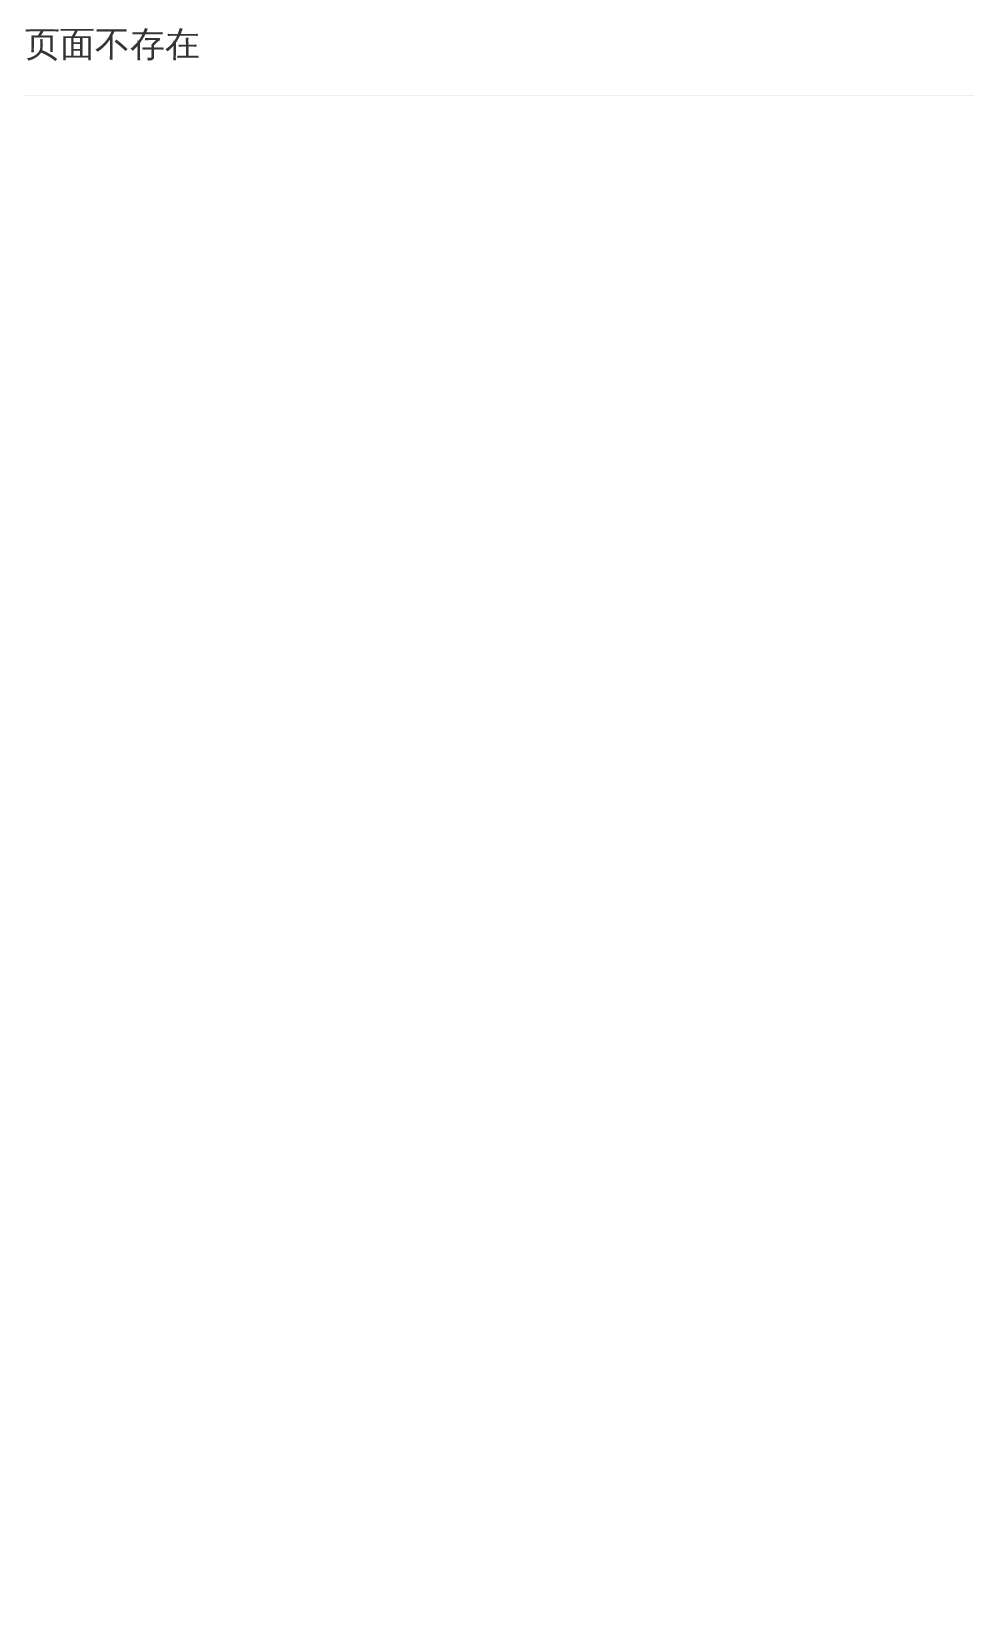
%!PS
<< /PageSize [998 1634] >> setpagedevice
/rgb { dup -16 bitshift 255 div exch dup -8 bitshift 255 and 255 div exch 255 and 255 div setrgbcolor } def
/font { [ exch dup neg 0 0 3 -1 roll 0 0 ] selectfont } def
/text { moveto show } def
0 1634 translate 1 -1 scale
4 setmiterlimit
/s1 { /WenQuanYiZenHei-Medium 35 font 16#333333 rgb } def
16#FFFFFF rgb
0 0 998 1634 rectfill
s1
(页面不存在) 25 56 text
16#EEEEEE rgb
25 95 949 1 rectfill
showpage
